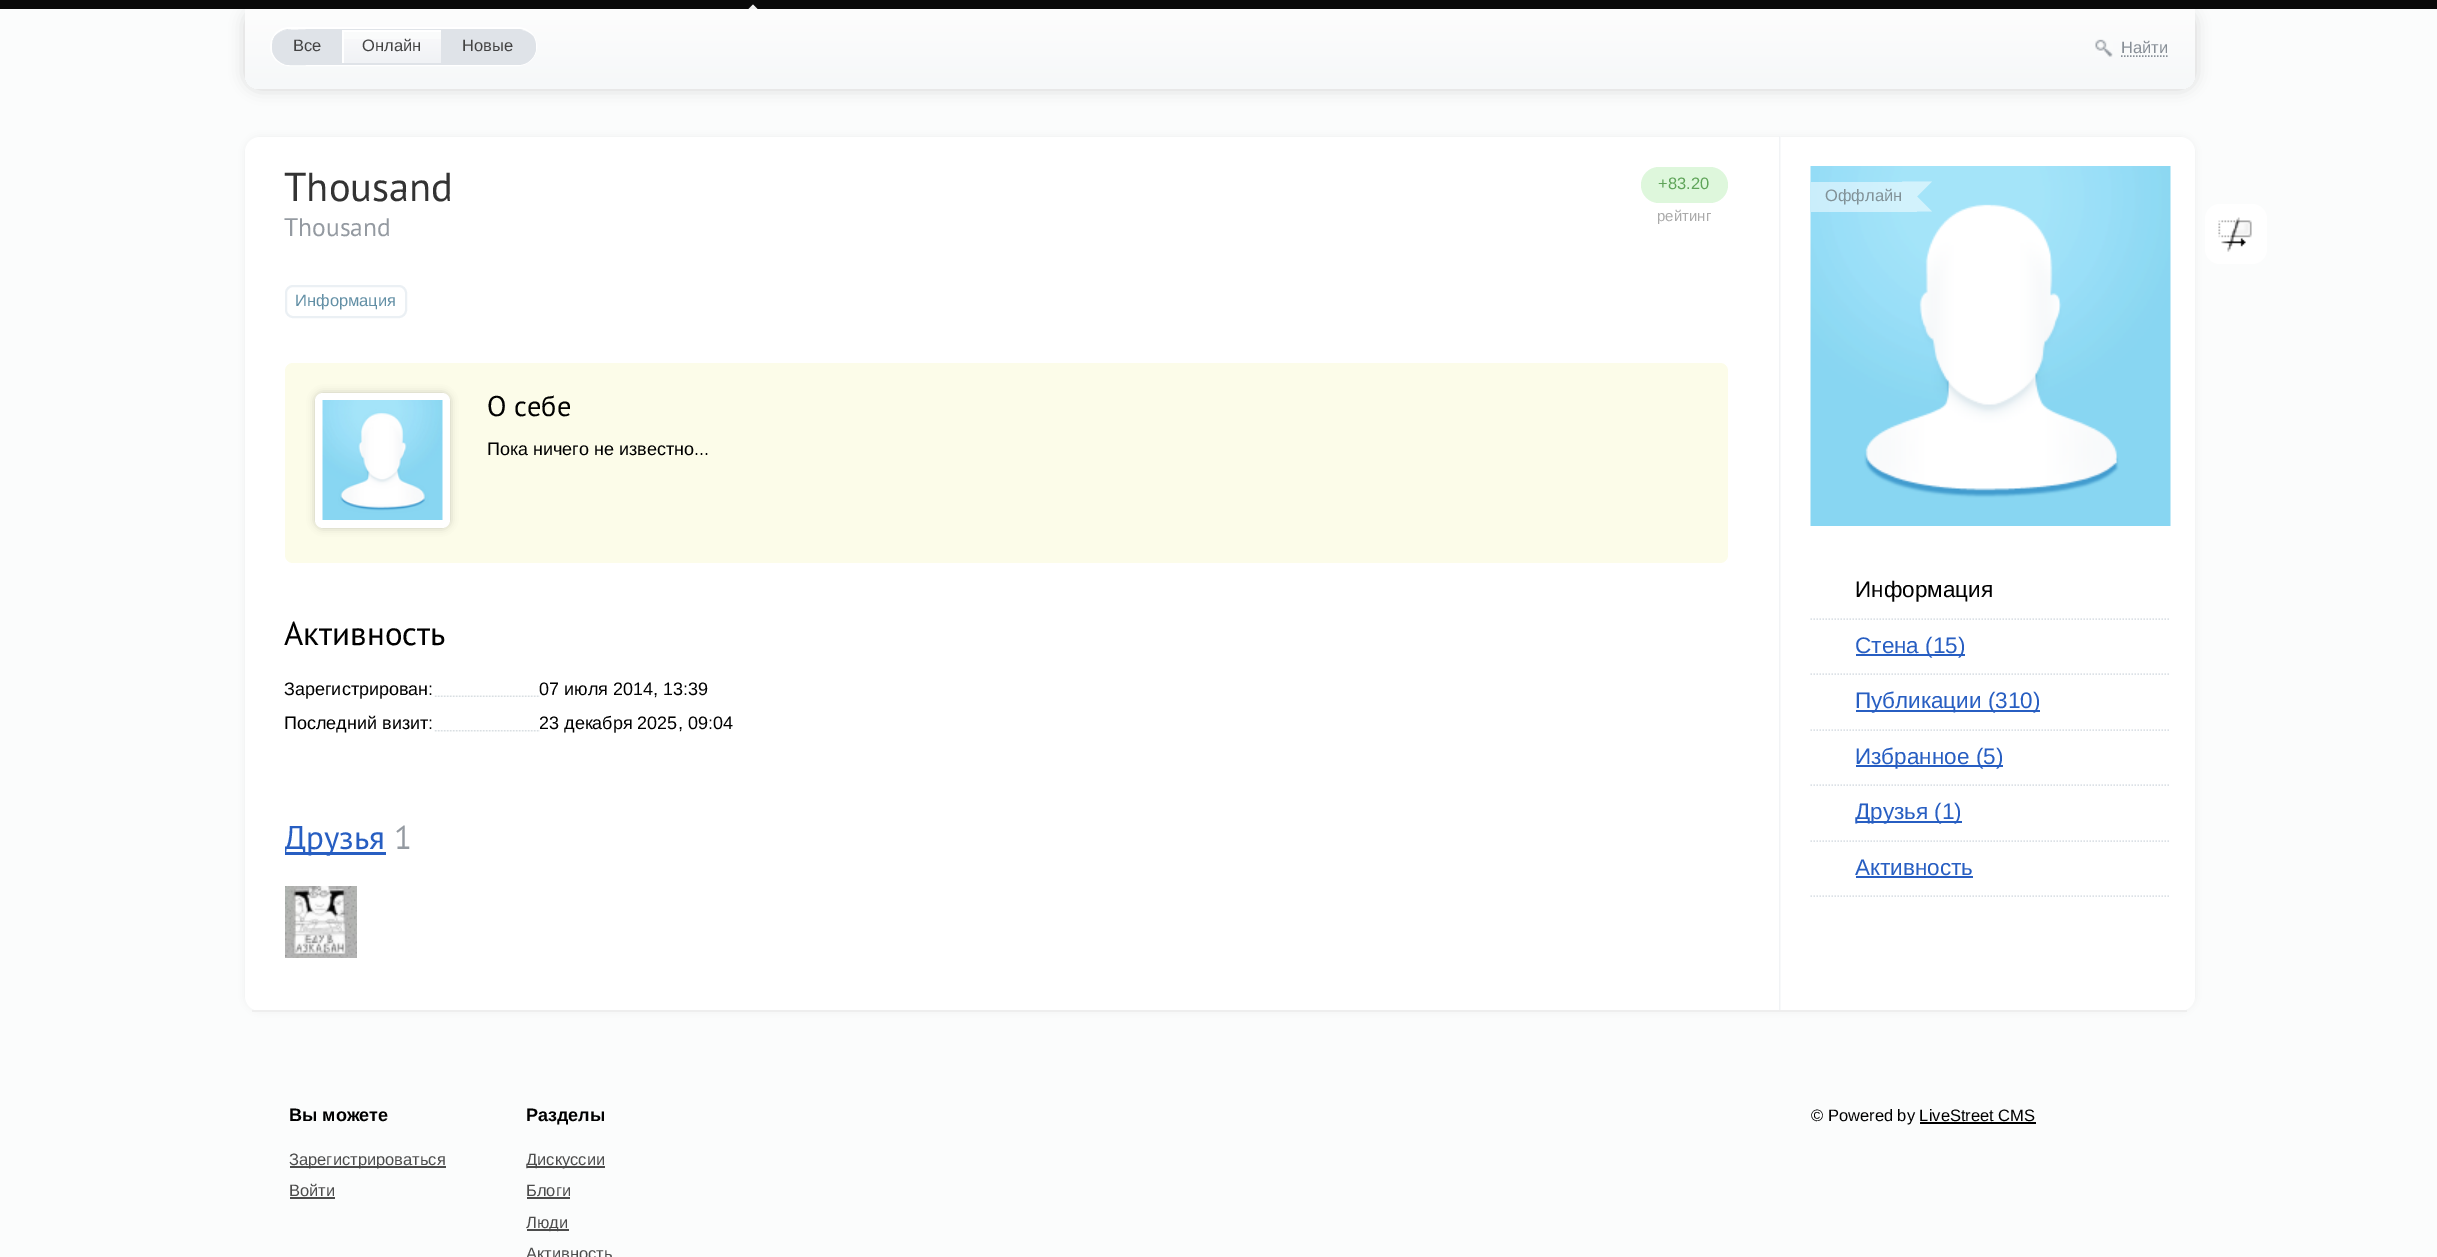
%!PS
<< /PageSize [2437 1257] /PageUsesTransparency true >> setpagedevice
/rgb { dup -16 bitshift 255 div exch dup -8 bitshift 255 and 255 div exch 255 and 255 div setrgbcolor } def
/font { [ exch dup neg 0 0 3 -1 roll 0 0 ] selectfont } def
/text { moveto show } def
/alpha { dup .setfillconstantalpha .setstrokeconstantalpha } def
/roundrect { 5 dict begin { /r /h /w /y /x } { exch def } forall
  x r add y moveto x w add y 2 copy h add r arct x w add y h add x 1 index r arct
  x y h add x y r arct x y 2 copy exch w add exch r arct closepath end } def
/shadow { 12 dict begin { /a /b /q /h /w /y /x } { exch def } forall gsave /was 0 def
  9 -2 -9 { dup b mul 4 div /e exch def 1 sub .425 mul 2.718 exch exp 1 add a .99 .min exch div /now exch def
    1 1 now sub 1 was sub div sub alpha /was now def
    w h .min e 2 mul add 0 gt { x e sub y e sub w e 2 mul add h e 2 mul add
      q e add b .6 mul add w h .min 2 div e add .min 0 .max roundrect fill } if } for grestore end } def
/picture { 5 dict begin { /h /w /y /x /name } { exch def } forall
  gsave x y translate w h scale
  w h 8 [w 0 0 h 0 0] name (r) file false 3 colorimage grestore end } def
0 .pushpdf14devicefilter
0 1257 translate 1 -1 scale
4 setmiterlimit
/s1 { /LiberationSans-Regular 16.5 font 16#434343 rgb } def
/s2 { /LiberationSans-Regular 16.5 font 16#878E96 rgb } def
/s3 { /PTSans-Regular 40.5 font 16#333333 rgb } def
/s4 { /LiberationSans-Regular 16.5 font 16#5FA459 rgb } def
/s5 { /LiberationSans-Regular 15 font 16#AAAAAA rgb } def
/s6 { /PTSans-Regular 25.5 font 16#949AA1 rgb } def
/s7 { /LiberationSans-Regular 16.5 font 16#628FA5 rgb } def
/s8 { /PTSans-Regular 28.5 font 16#000000 rgb } def
/s9 { /LiberationSans-Regular 18 font 16#000000 rgb } def
/s10 { /PTSans-Regular 33 font 16#000000 rgb } def
/s11 { /PTSans-Regular 33 font 16#275EC2 rgb } def
/s12 { /PTSans-Regular 33 font 16#949AA1 rgb } def
/s13 { /LiberationSans-Regular 16.5 font 16#819197 rgb } def
/s14 { /LiberationSans-Regular 22.5 font 16#000000 rgb } def
/s15 { /LiberationSans-Regular 22.5 font 16#275EC2 rgb } def
/s16 { /LiberationSans-Bold 18 font 16#000000 rgb } def
/s17 { /LiberationSans-Regular 16.5 font 16#4C4C4C rgb } def
/s18 { /LiberationSans-Regular 16.5 font 16#000000 rgb } def
16#FBFCFC rgb
0 0 2437 1257 rectfill
16#090909 rgb
0 0 2437 9 rectfill
16#FFFFFF rgb
757.5 9 moveto 748.5 9 lineto 753 4.5 lineto closepath fill
16#000000 rgb
245 9 1950 80 15 7.5 0.15 shadow
gsave 245 9 moveto 2195 9 lineto 2195 74 lineto 2195 82.5 2188.5 89 2180 89 curveto 260 89 lineto 251.5 89 245 82.5 245 74 curveto closepath clip newpath
<< /ShadingType 2 /ColorSpace /DeviceRGB /Coords [1220 9 1220 89] /Extend [true true] /Function << /FunctionType 2 /Domain [0 1] /C0 [0.992 0.992 0.992] /C1 [0.965 0.973 0.976] /N 1 >> >> shfill grestore
16#FFFFFF rgb
2 setlinewidth
271 28 265 37 18.5 roundrect stroke
16#DFE3E8 rgb
272 49 moveto 273 58 281 65 290 65 curveto 342 65 lineto 342 63 lineto 286 63 lineto 278 61 273 55 272 49 curveto closepath fill
290 30 moveto 342 30 lineto 342 29 lineto 290 29 lineto 281 29 274 35 272 43 curveto 274 36 280 30 290 30 curveto closepath fill
284 64 moveto 291 66 300 65 307 65 curveto 342 65 lineto 342 29 lineto 340 29 lineto 340 64 lineto closepath fill
16#FFFFFF rgb
288 32 moveto 340 32 lineto 340 63 lineto 341 63 lineto 341 30 lineto 306 30 lineto 295 30 280 27 274 39 curveto 273 41 272 44 272 47 curveto 272 39 279 32 288 32 curveto closepath fill
16#DFE3E8 rgb
288 30 moveto 341 30 lineto 341 63 lineto 288 63 lineto 279 63 272 56 272 47 curveto 272 43 273 39 275 36 curveto 278 33 283 30 288 30 curveto closepath fill
s1
(Все) 293 51 text
16#DFE3E8 rgb
342 63 101 2 rectfill
342 29 101 1 rectfill
441 29 2 36 rectfill
gsave 344 39 moveto 441 39 lineto 441 63 lineto 344 63 lineto closepath clip newpath
<< /ShadingType 2 /ColorSpace /DeviceRGB /Coords [392 30 392 63] /Extend [true true] /Function << /FunctionType 2 /Domain [0 1] /C0 [0.984 0.984 0.988] /C1 [0.941 0.949 0.961] /N 1 >> >> shfill grestore
16#FFFFFF rgb
342 30 99 2 rectfill
342 30 2 33 rectfill
s1
(Онлайн) 362 51 text
16#DFE3E8 rgb
443 65 moveto 518 65 lineto 528 65 536 57 536 47 curveto 536 46 lineto 535 56 527 63 518 63 curveto 443 63 lineto closepath fill
443 29 moveto 443 30 lineto 518 30 lineto 527 30 536 38 536 48 curveto 536 38 528 29 518 29 curveto closepath fill
16#FFFFFF rgb
443 30 moveto 507 30 lineto 523 30 lineto 531 32 536 40 536 47 curveto 536 39 528 32 519 32 curveto 443 32 lineto closepath fill
16#DFE3E8 rgb
443 30 moveto 520 30 lineto 525 30 530 33 533 36 curveto 535 39 536 43 536 47 curveto 536 56 529 63 520 63 curveto 443 63 lineto closepath fill
s1
(Новые) 462 51 text
(pic1.raw) 2095 39 18 18 picture
s2
(Найти) 2121 53 text
1.5 setlinewidth
[1.5 1.5] 0 setdash
2121 56 moveto 2169 56 lineto stroke
16#000000 rgb
245 137 1950 874 15 4 0.05 shadow
16#FFFFFF rgb
245 137 1950 874 15 roundrect fill
(pic2.raw) 1779 136 2 874 picture
16#EEEEEE rgb
252 1010 1935 2 rectfill
s3
(Thousand) 284 201 text
16#DEF7DC rgb
1641 167 87 36 18 roundrect fill
s4
(+83.20) 1658 189 text
s5
(рейтинг) 1657 221 text
s6
(Thousand) 284 236 text
16#EBF0F4 rgb
2 setlinewidth
[] 0 setdash
286 286 120 31 7 roundrect stroke
s7
(Информация) 295 306 text
16#FCFCE9 rgb
285 363 1443 200 8 roundrect fill
16#000000 rgb
315 393 135 135 8 4 0.2 shadow
16#FFFFFF rgb
315 393 135 135 8 roundrect fill
(pic3.raw) 322 400 121 120 picture
s8
(О себе) 487 416 text
s9
(Пока ничего не известно...) 487 455 text
s10
(Активность) 284 645 text
(pic4.raw) 434 695 106 2 picture
s9
(Зарегистрирован:) 284 695 text
(07 июля 2014, 13:39) 539 695 text
(pic5.raw) 434 730 106 2 picture
(Последний визит:) 284 729 text
(23 декабря 2025, 09:04) 539 729 text
16#275EC2 rgb
285 852 101 3 rectfill
gsave
285 608 1443 372 rectclip
s11
(Друзья) 284 849 text
grestore
s12
(1) 394 849 text
(pic6.raw) 285 886 72 72 picture
(pic7.raw) 1810 166 361 360 picture
0.5 alpha
16#FFFFFF rgb
1811 182 91 30 rectfill
1 alpha
s13
(Оффлайн) 1825 201 text
16#D2F2FC rgb
1902 181.5 moveto 1932 181.5 lineto 1917 196.5 lineto closepath fill
1932 211.5 moveto 1902 211.5 lineto 1917 196.5 lineto closepath fill
1902 182 15 30 rectfill
16#DCE1E6 rgb
1.5 setlinewidth
[1.5 1.5] 0 setdash
1810.5 619 moveto 2170.5 619 lineto stroke
s14
(Информация) 1855 597 text
16#DCE1E6 rgb
1810.5 674 moveto 2170.5 674 lineto stroke
16#275EC2 rgb
1856 654 109 2 rectfill
(Стена \(15\)) 1855 653 text
16#DCE1E6 rgb
1810.5 730 moveto 2170.5 730 lineto stroke
16#275EC2 rgb
1856 710 184 2 rectfill
(Публикации \(310\)) 1855 708 text
16#DCE1E6 rgb
1810.5 785 moveto 2170.5 785 lineto stroke
16#275EC2 rgb
1856 765 147 2 rectfill
(Избранное \(5\)) 1855 764 text
16#DCE1E6 rgb
1810.5 841 moveto 2170.5 841 lineto stroke
16#275EC2 rgb
1856 821 106 2 rectfill
(Друзья \(1\)) 1855 819 text
16#DCE1E6 rgb
1810.5 896 moveto 2170.5 896 lineto stroke
s15
(Активность) 1855 875 text
1856 876 117 2 rectfill
s16
(Вы можете) 289 1121 text
16#4C4C4C rgb
290 1166 156 2 rectfill
s17
(Зарегистрироваться) 289 1165 text
(Войти) 289 1196 text
290 1197 45 2 rectfill
s16
(Разделы) 526 1121 text
16#4C4C4C rgb
527 1166 78 2 rectfill
s17
(Дискуссии) 526 1165 text
(Блоги) 526 1196 text
527 1197 43 2 rectfill
527 1229 42 2 rectfill
(Люди) 526 1228 text
(Активность) 526 1259 text
s18
(© Powered by LiveStreet CMS) 1811 1121 text
1920 1122 116 2 rectfill
16#FFFFFF rgb
2205 204 62 60 15 roundrect fill
(pic8.raw) 2218 217 34 35 picture
.poppdf14devicefilter showpage
